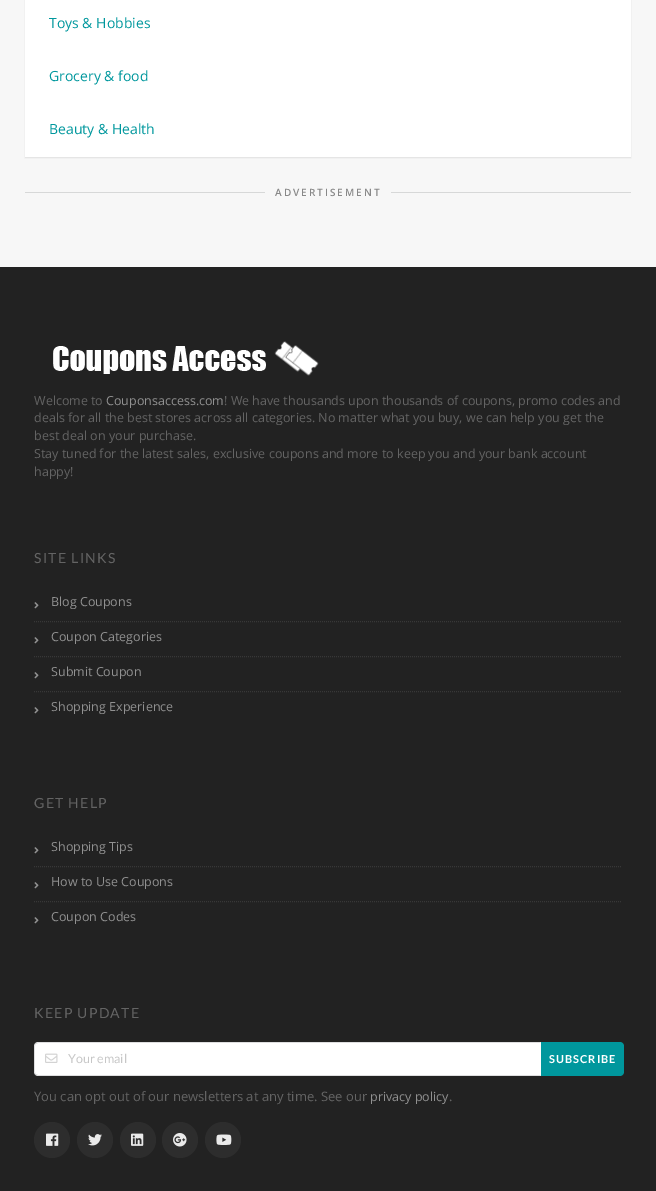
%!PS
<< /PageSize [656 1191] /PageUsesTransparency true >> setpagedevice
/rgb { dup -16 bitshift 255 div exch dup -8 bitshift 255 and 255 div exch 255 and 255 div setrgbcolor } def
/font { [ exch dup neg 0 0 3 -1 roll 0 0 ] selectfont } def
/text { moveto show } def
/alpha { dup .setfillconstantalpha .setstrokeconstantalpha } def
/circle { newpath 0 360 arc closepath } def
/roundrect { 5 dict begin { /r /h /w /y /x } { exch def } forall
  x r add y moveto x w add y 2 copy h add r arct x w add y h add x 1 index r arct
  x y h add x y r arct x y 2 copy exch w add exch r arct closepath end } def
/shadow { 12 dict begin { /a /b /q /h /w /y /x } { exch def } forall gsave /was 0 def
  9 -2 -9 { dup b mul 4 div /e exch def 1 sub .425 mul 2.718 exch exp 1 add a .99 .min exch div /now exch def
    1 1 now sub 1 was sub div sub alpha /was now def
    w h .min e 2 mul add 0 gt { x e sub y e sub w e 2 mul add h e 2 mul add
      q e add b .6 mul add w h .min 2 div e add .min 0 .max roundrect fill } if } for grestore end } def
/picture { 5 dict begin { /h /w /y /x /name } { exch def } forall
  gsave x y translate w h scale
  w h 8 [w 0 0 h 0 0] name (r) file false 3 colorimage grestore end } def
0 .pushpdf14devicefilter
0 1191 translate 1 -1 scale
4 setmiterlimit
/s1 { /OpenSans-Regular 14 font 16#00979D rgb } def
/s2 { /OpenSans-Regular 12.5 font 16#646464 rgb } def
/s3 { /OpenSans-Regular 12.5 font 16#919191 rgb } def
/s4 { /Lato-Regular 12.5 font 16#C7C7C7 rgb } def
/s5 { /OpenSans-Regular 13 font 16#646464 rgb } def
16#F7F7F7 rgb
0 0 656 1191 rectfill
16#000000 rgb
25 -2 606 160 0 0.5 0.08 shadow
16#FFFFFF rgb
25 0 606 157 rectfill
s1
(Toys & Hobbies) 49 28 text
(Grocery & food) 49 81 text
(Beauty & Health) 49 134 text
16#D7D8D8 rgb
25 192 240 1 rectfill
/OpenSans-SemiBold 10 font
16#888888 rgb
275 196 moveto 2 0 (ADVERTISEMENT) ashow
16#D7D8D8 rgb
391 192 240 1 rectfill
16#222222 rgb
0 267 656 924 rectfill
(pic1.raw) 53 341 266 35 picture
s2
(Welcome to) 34 405 text
s3
(Couponsaccess.com) 106 405 text
s2
(! We have thousands upon thousands of coupons, promo codes and) 224 405 text
(deals for all the best stores across all categories. No matter what you buy, we can help you get the) 34 422 text
(best deal on your purchase.) 34 440 text
(Stay tuned for the latest sales, exclusive coupons and more to keep you and your bank account) 34 458 text
(happy!) 34 476 text
/Lato-Regular 14 font
34 563 moveto 1.25 0 (SITE LINKS) ashow
16#383838 rgb
[1 1] 0 setdash
34 621.5 moveto 622 621.5 lineto stroke
(pic2.raw) 34 602 5 7 picture
s3
(Blog Coupons) 51 606 text
16#383838 rgb
34 656.5 moveto 622 656.5 lineto stroke
(pic2.raw) 34 637 5 7 picture
s3
(Coupon Categories) 51 641 text
16#383838 rgb
34 691.5 moveto 622 691.5 lineto stroke
(pic2.raw) 34 672 5 7 picture
s3
(Submit Coupon) 51 676 text
(pic2.raw) 34 707 5 7 picture
(Shopping Experience) 51 711 text
/Lato-Regular 14 font
16#646464 rgb
34 808 moveto 1.25 0 (GET HELP) ashow
16#383838 rgb
34 866.5 moveto 622 866.5 lineto stroke
(pic2.raw) 34 847 5 7 picture
s3
(Shopping Tips) 51 851 text
16#383838 rgb
34 901.5 moveto 622 901.5 lineto stroke
(pic2.raw) 34 882 5 7 picture
s3
(How to Use Coupons) 51 886 text
(pic2.raw) 34 917 5 7 picture
(Coupon Codes) 51 921 text
/Lato-Regular 14 font
16#646464 rgb
34 1018 moveto 1.25 0 (KEEP UPDATE) ashow
16#FFFFFF rgb
38 1042 moveto 541 1042 lineto 541 1076 lineto 38 1076 lineto 36 1076 34 1074 34 1072 curveto 34 1046 lineto 34 1044 36 1042 38 1042 curveto closepath fill
(pic3.raw) 45 1053 13 10 picture
0.15 alpha
16#222426 rgb
38 1042 moveto 35 1043 lineto 36 1044 lineto 38 1043 lineto 540 1043 lineto 541 1042 lineto closepath fill
541 1076 moveto 540 1075 lineto 38 1075 lineto 36 1074 lineto 35 1075 lineto 38 1076 lineto closepath fill
34 1046 moveto 34 1072 lineto 34 1073 34.5 1074 35 1075 curveto 36 1074 lineto 35 1074 35 1073 35 1072 curveto 35 1046 lineto 35 1045 35 1044 36 1044 curveto 35 1043 lineto 34.5 1044 34 1045 34 1046 curveto closepath fill
1 alpha
s4
(Your email) 68 1063 text
16#00979D rgb
541 1042 moveto 620 1042 lineto 622 1042 624 1044 624 1046 curveto 624 1072 lineto 624 1074 622 1076 620 1076 curveto 541 1076 lineto closepath fill
/Lato-Bold 11 font
16#FFFFFF rgb
549 1063 moveto 1 0 (SUBSCRIBE) ashow
s5
(You can opt out of our newsletters at any time. See our) 34 1101 text
s3
(privacy policy) 370 1101 text
s5
(.) 449 1101 text
16#2D2D2D rgb
52 1140 18 circle fill
(pic4.raw) 46 1133 13 13 picture
95 1140 18 circle fill
(pic5.raw) 88 1134 14 12 picture
138 1140 18 circle fill
(pic6.raw) 131 1133 13 13 picture
180 1140 18 circle fill
(pic7.raw) 173 1133 14 14 picture
223 1140 18 circle fill
(pic8.raw) 216 1134 16 11 picture
.poppdf14devicefilter showpage
